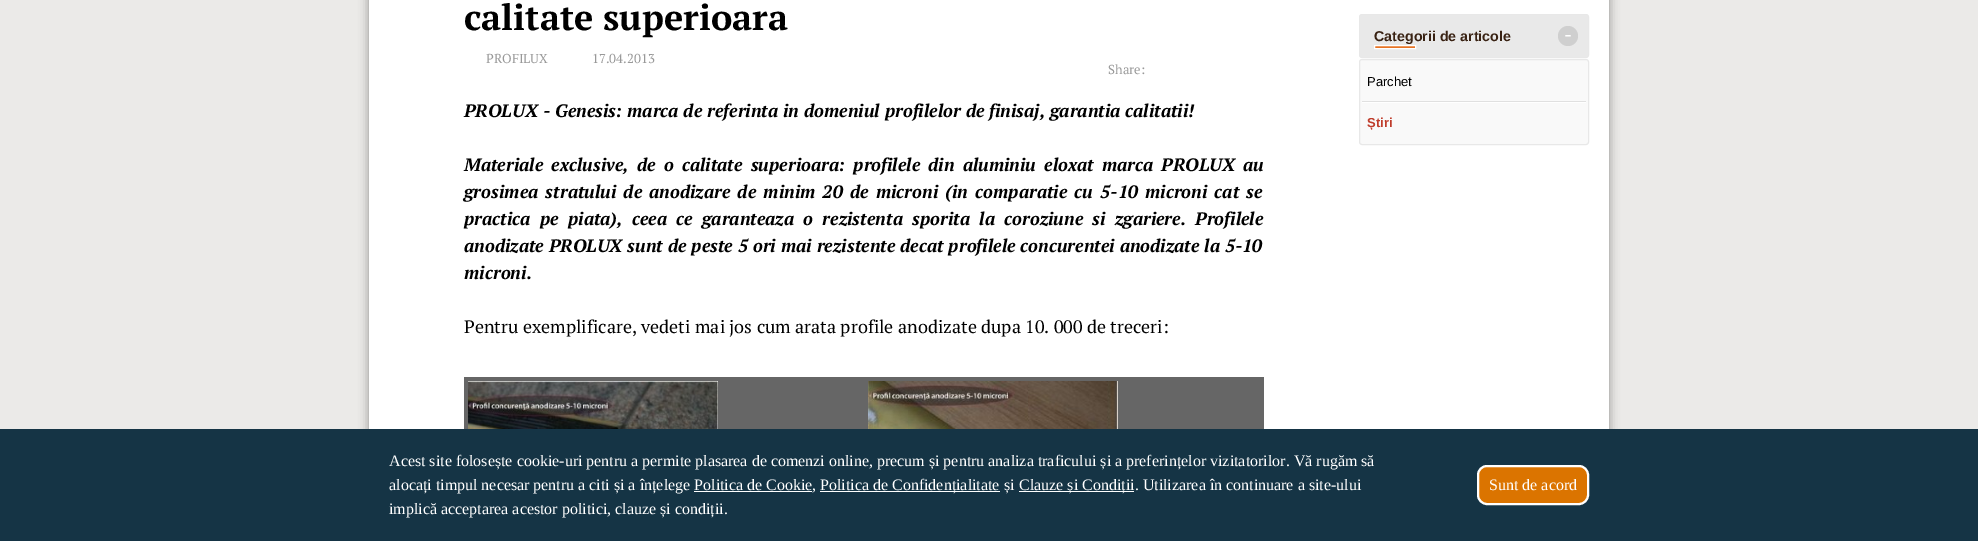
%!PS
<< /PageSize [1978 541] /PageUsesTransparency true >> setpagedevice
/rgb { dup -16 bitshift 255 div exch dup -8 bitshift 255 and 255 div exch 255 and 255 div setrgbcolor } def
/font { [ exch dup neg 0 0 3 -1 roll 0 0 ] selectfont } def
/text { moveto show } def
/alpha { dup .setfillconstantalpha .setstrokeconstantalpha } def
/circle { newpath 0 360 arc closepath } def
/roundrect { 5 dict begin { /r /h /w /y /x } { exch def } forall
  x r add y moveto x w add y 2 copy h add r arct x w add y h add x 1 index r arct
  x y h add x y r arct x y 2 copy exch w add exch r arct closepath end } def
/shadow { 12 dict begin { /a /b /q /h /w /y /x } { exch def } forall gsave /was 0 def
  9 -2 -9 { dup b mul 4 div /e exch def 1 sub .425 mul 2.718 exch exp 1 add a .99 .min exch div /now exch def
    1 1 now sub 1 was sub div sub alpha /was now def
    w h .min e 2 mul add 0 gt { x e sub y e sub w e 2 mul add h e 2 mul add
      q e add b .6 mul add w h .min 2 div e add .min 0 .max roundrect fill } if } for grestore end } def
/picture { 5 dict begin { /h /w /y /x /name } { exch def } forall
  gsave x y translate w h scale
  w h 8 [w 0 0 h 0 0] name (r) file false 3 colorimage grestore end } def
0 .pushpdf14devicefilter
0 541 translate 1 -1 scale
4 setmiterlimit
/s1 { /PTSerif-Bold 36 font 16#000000 rgb } def
/s2 { /PTSerif-Regular 13 font 16#999999 rgb } def
/s3 { /PTSerif-BoldItalic 18 font 16#000000 rgb } def
/s4 { /PTSerif-Regular 18 font 16#000000 rgb } def
/s5 { /LiberationSans-Bold 14.25 font 16#392213 rgb } def
/s6 { /LiberationMono-Regular 20 font 16#FFFFFF rgb } def
/s7 { /LiberationSans-Regular 13 font 16#000000 rgb } def
/s8 { /LiberationSans-Bold 13 font 16#BF3C2B rgb } def
/s9 { /LiberationSerif-Regular 16 font 16#FFFFFF rgb } def
16#EBEAE8 rgb
0 0 1978 541 rectfill
16#323232 rgb
369 -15 1240 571 0 5 0.5 shadow
16#FFFFFF rgb
369 0 1240 429 rectfill
s1
(calitate superioara) 464 30 text
s2
(PROFILUX) 486 63 text
(17.04.2013) 592 63 text
(Share:) 1108 74 text
s3
(PROLUX - Genesis: marca de referinta in domeniul profilelor de finisaj, garantia calitatii!) 464 117 text
464 171 moveto 3.25 0 32 (Materiale exclusive, de o calitate superioara: profilele din aluminiu eloxat marca PROLUX au) widthshow
464 198 moveto 2.25 0 32 (grosimea stratului de anodizare de minim 20 de microni \(in comparatie cu 5-10 microni cat se) widthshow
464 225 moveto 4.4 0 32 (practica pe piata\), ceea ce garanteaza o rezistenta sporita la coroziune si zgariere. Profilele) widthshow
(anodizate PROLUX sunt de peste 5 ori mai rezistente decat profilele concurentei anodizate la 5-10) 464 252 text
(microni.) 464 279 text
s4
(Pentru exemplificare, vedeti mai jos cum arata profile anodizate dupa 10. 000 de treceri:) 464 333 text
16#666666 rgb
465 378 399 51 rectfill
864 377 400 52 rectfill
464 377 401 1 rectfill
464 377 1 52 rectfill
(pic1.raw) 468 381 250 48 picture
(pic2.raw) 868 381 250 48 picture
16#E9E9E9 rgb
1359.5 14.5 229 43 2.5 roundrect gsave fill grestore
16#E8E8E8 rgb
stroke
s5
(Categorii de articole) 1374 41 text
16#CFCFCF rgb
1568 36 10 circle fill
s6
(-) 1562 41 text
16#E77324 rgb
1374.5 45.5 moveto 1415.5 45.5 lineto 1415.5 48.5 lineto 1374.5 48.5 lineto closepath gsave fill grestore
16#FFFFFF rgb
stroke
16#F9F9F9 rgb
1359.5 59.5 229 85 2.5 roundrect gsave fill grestore
16#E8E8E8 rgb
stroke
16#E0E0E0 rgb
1362 101 224 1 rectfill
s7
(Parchet) 1367 86 text
16#FFFFFF rgb
1362 102 224 1 rectfill
s8
(Știri) 1367 127 text
16#153445 rgb
0 429 1978 112 rectfill
s9
(Acest site folosește cookie-uri pentru a permite plasarea de comenzi online, precum și pentru analiza traficului și a preferințelor vizitatorilor. Vă rugăm să) 389 466 text
(alocați timpul necesar pentru a citi și a înțelege Politica de Cookie,) 389 490 text
820 491 180 1 rectfill
(Politica de Confidențialitate și) 820 490 text
1019 491 115 1 rectfill
(Clauze și Condiții. Utilizarea în continuare a site-ului) 1019 490 text
694 491 118 1 rectfill
(implică acceptarea acestor politici, clauze și condiții.) 389 514 text
16#DB7400 rgb
1478 466 110 38 9 roundrect gsave fill grestore
16#FFFFFF rgb
2 setlinewidth
stroke
(Sunt de acord) 1489 490 text
.poppdf14devicefilter showpage
